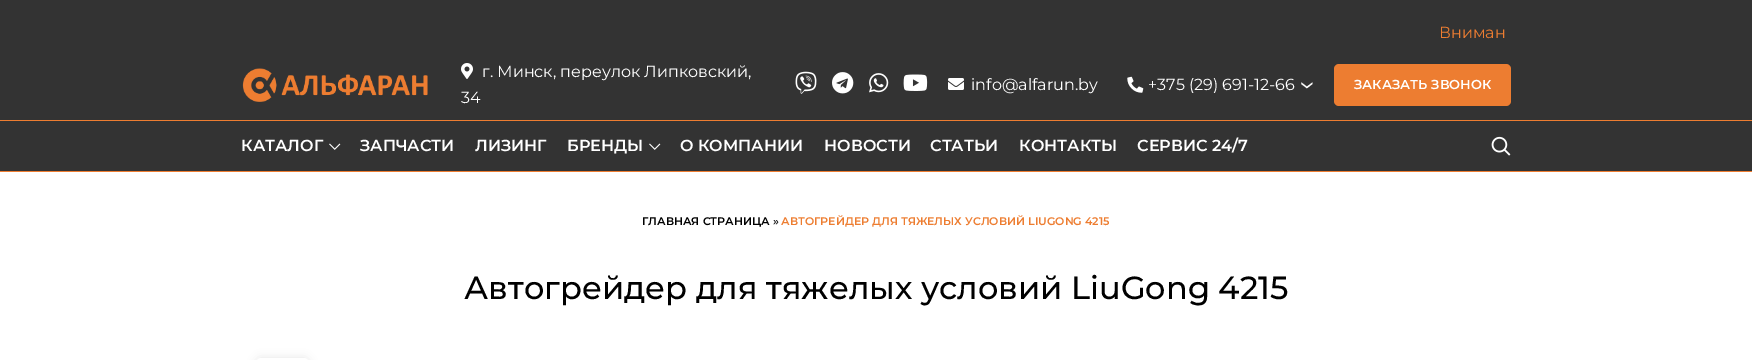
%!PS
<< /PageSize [1752 360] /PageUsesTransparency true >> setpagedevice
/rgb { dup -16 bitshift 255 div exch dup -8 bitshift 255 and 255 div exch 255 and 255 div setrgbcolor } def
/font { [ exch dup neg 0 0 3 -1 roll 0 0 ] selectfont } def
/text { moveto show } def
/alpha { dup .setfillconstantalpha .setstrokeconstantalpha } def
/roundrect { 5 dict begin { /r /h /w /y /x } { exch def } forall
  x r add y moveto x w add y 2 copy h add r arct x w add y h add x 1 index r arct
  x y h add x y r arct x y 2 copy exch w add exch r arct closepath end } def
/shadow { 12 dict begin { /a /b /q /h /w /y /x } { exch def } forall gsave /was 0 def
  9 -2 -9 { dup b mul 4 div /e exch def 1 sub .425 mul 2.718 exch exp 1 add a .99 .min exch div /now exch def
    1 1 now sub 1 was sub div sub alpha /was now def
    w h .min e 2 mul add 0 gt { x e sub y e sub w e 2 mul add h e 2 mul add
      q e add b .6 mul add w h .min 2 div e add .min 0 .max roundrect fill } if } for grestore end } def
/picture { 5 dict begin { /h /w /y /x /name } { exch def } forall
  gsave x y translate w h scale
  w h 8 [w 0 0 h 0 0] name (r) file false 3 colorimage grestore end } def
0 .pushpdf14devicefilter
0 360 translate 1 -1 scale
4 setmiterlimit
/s1 { /Montserrat-Regular 16 font 16#ED7D31 rgb } def
/s2 { /Montserrat-Regular 16 font 16#FFFFFF rgb } def
/s3 { /Montserrat-SemiBold 13 font 16#FFFFFF rgb } def
/s4 { /Montserrat-SemiBold 16 font 16#FFFFFF rgb } def
/s5 { /Montserrat-SemiBold 11 font 16#000000 rgb } def
/s6 { /Montserrat-SemiBold 11 font 16#242424 rgb } def
/s7 { /Montserrat-SemiBold 11 font 16#ED7D31 rgb } def
/s8 { /Montserrat-Medium 32 font 16#000000 rgb } def
16#FFFFFF rgb
0 0 1752 360 rectfill
16#333333 rgb
0 0 1752 120 rectfill
s1
(Вниман) 1439 38 text
0 120 1752 1 rectfill
(pic1.raw) 242 68 186 34 picture
(pic2.raw) 461 63 12 16 picture
s2
(г. Минск, переулок Липковский,) 482 77 text
(34) 461 103 text
(pic3.raw) 795 71 22 23 picture
(pic4.raw) 832 72 22 22 picture
(pic5.raw) 869 73 20 20 picture
(pic6.raw) 903 74 25 17 picture
(pic7.raw) 948 78 16 12 picture
(info@alfarun.by) 971 90 text
(pic8.raw) 1127 76 17 17 picture
(+375 \(29\) 691-12-66) 1148 90 text
/Montserrat-Regular 30 font
gsave 1299 81 translate 90 rotate 0 0 moveto (›) show grestore
16#ED7D31 rgb
1334 64 177 42 5 roundrect fill
s3
(ЗАКАЗАТЬ ЗВОНОК) 1354 89 text
16#333333 rgb
0 121 1752 50 rectfill
16#ED7D31 rgb
0 171 1752 1 rectfill
s4
(КАТАЛОГ) 241 151 text
(pic9.raw) 329 143 12 7 picture
(ЗАПЧАСТИ) 360 151 text
(ЛИЗИНГ) 475 151 text
(БРЕНДЫ) 567 151 text
(pic9.raw) 649 143 12 7 picture
(О КОМПАНИИ) 680 151 text
(НОВОСТИ) 824 151 text
(СТАТЬИ) 930 151 text
(КОНТАКТЫ) 1019 151 text
(СЕРВИС 24/7) 1137 151 text
(pic10.raw) 1491 136 20 20 picture
s5
(ГЛАВНАЯ СТРАНИЦА) 642 225 text
s6
(») 773 225 text
s7
(АВТОГРЕЙДЕР ДЛЯ ТЯЖЕЛЫХ УСЛОВИЙ LIUGONG 4215) 781 225 text
s8
(Автогрейдер для тяжелых условий LiuGong 4215) 464 299 text
256 358 53 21 5 4.5 0.1 shadow
16#FFFFFF rgb
256 358 53 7 5 roundrect fill
.poppdf14devicefilter showpage
